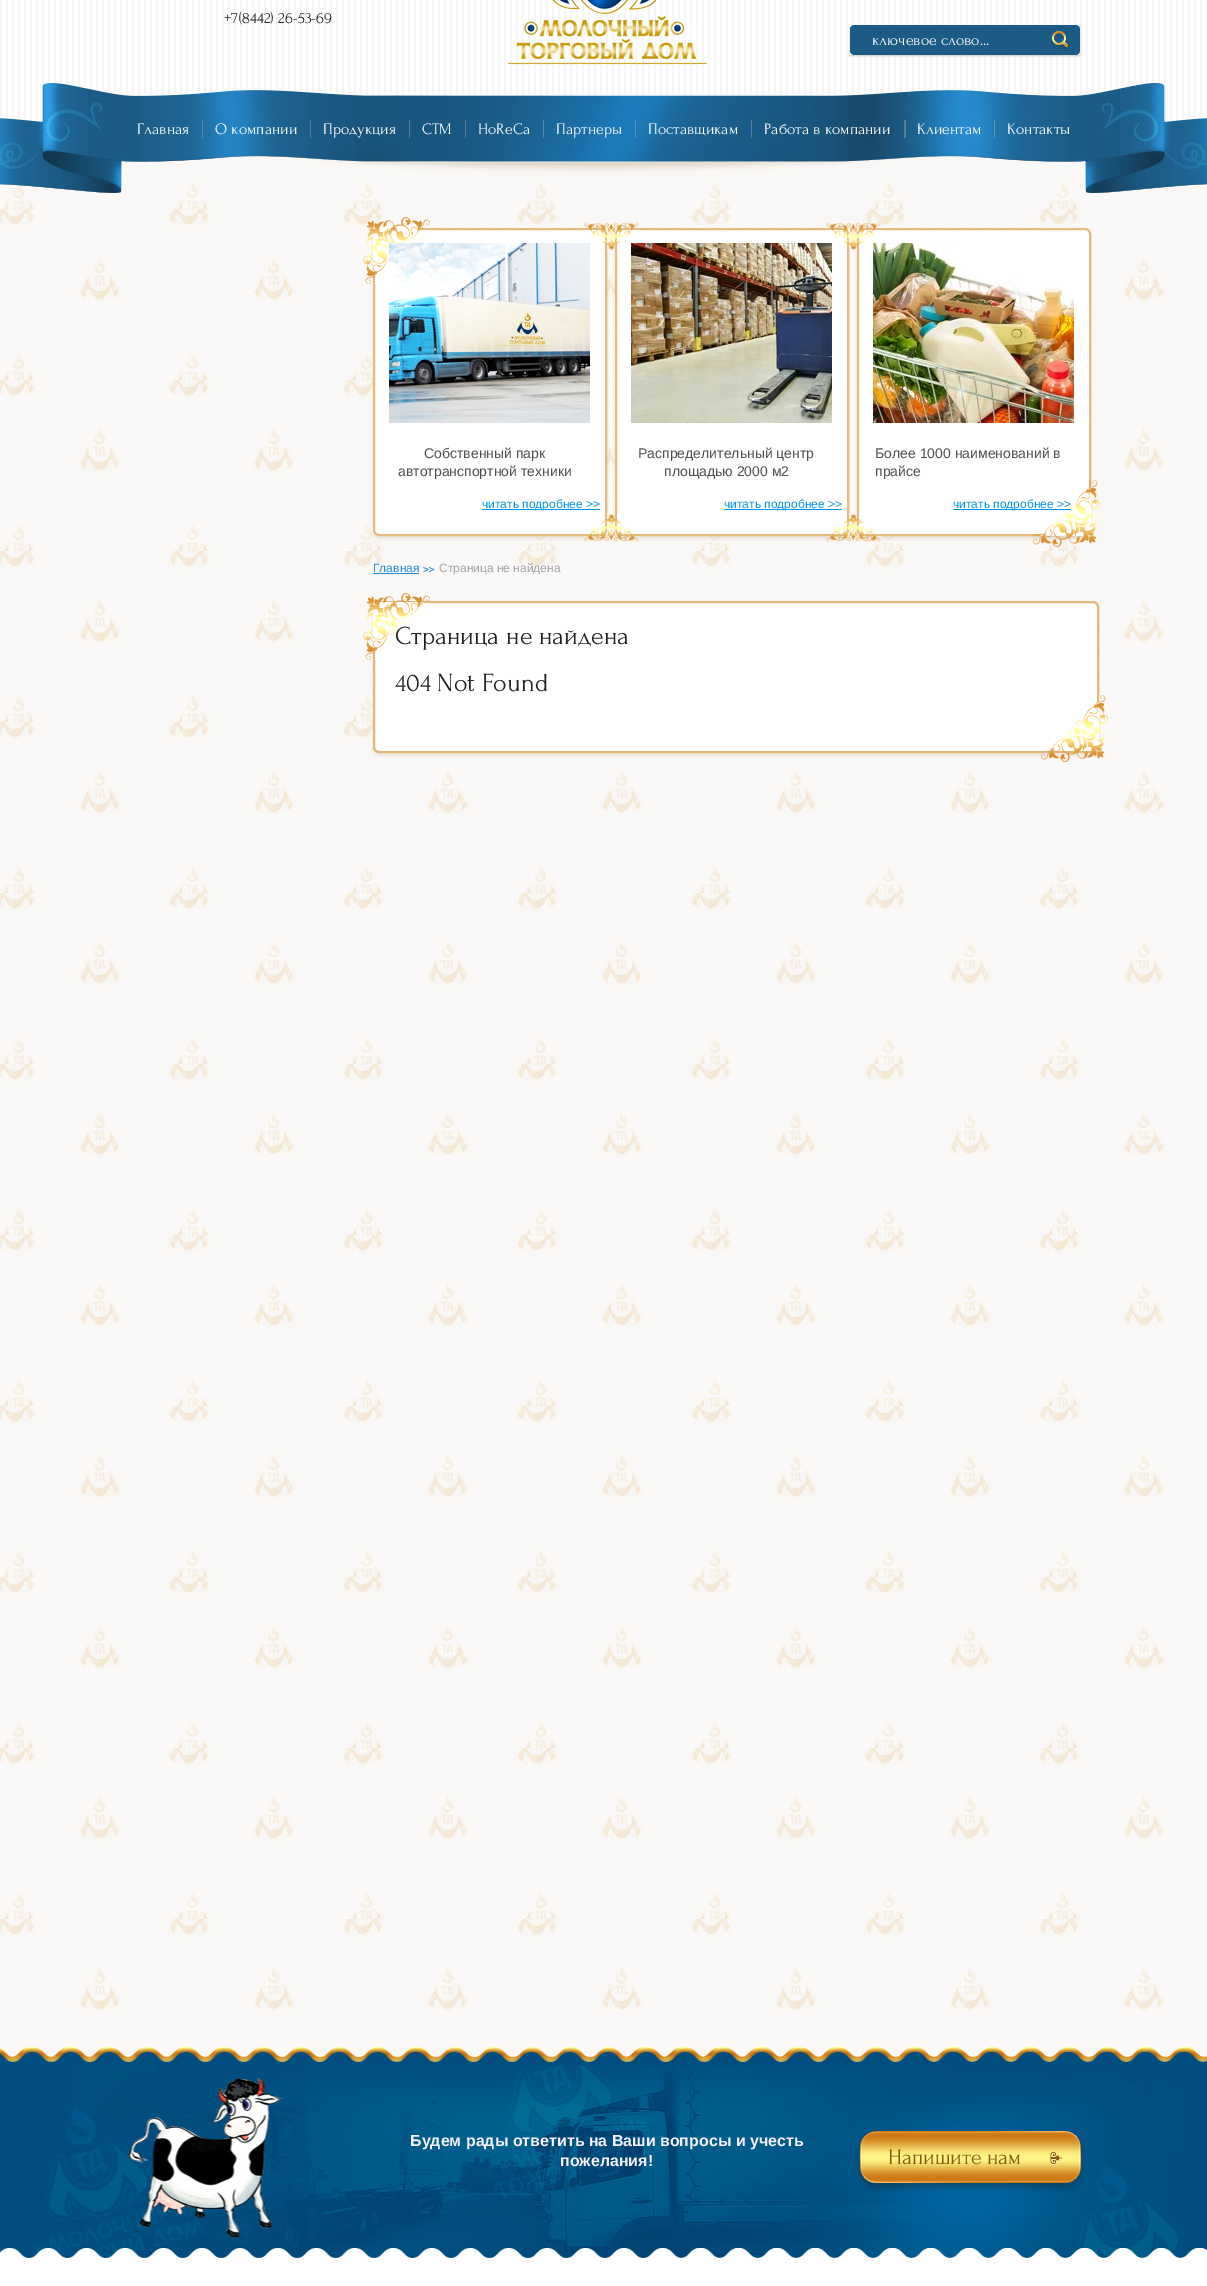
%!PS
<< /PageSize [1207 2286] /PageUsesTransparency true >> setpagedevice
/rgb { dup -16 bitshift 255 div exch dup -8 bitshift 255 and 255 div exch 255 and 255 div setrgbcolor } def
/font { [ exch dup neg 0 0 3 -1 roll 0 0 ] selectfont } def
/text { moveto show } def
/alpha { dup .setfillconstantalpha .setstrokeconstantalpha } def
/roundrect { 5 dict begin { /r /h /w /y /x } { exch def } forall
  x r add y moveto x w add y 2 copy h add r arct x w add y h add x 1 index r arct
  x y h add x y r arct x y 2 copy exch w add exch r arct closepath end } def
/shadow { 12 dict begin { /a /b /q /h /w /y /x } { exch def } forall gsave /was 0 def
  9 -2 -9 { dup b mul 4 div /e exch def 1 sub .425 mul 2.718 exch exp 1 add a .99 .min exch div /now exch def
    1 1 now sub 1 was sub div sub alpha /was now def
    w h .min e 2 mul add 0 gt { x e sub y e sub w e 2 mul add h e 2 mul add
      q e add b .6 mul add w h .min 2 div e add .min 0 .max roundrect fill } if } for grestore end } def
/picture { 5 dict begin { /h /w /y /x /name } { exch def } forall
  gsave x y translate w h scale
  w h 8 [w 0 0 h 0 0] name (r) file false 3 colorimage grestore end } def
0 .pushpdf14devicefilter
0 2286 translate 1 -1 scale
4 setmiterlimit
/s1 { /Forum-Regular 16 font 16#202020 rgb } def
/s2 { /Forum-Regular 16 font 16#FFFFFF rgb } def
/s3 { /LiberationSans-Regular 14 font 16#4F4F4F rgb } def
/s4 { /LiberationSans-Regular 12 font 16#0295E9 rgb } def
/s5 { /LiberationSans-Regular 12 font 16#248BD7 rgb } def
/s6 { /LiberationSans-Regular 12 font 16#A2A2A2 rgb } def
/s7 { /Forum-Regular 26 font 16#202020 rgb } def
/s8 { /LiberationSans-Bold 16 font 16#F8F0FD rgb } def
/s9 { /Forum-Regular 22 font 16#885412 rgb } def
16#FFFFFF rgb
0 0 1207 2286 rectfill
(pic1.raw) 0 155 1207 1902 picture
16#A0937F rgb
0 -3 1207 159 0 1 0.24 shadow
(pic2.raw) 0 0 1207 121 picture
s1
(+7\(8442\) 26-53-69) 224 23 text
(pic3.raw) 508 0 199 65 picture
16#BBA27D rgb
850 26 230 30 0 1 0.63 shadow
(pic4.raw) 850 25 230 30 picture
s2
(ключевое слово...) 872 45 text
(pic5.raw) 0 83 1207 110 picture
(Главная) 137 134 text
16#578CAF rgb
202 120 1 18 rectfill
s2
(О компании) 215 134 text
16#547F9B rgb
310 120 1 18 rectfill
s2
(Продукция) 323 134 text
16#537B96 rgb
409 120 1 18 rectfill
s2
(СТМ) 422 134 text
16#537C99 rgb
465 120 1 18 rectfill
s2
(HoReCa) 478 134 text
16#5486A8 rgb
543 120 1 18 rectfill
s2
(Партнеры) 556 134 text
0.32 alpha
16#CDCAC7 rgb
635 120 1 18 rectfill
1 alpha
s2
(Поставщикам) 648 134 text
16#537E9B rgb
751 120 1 18 rectfill
s2
(Работа в компании) 764 134 text
0.32 alpha
16#CDCAC7 rgb
904 120 2 18 rectfill
1 alpha
s2
(Клиентам) 917 134 text
16#5893BA rgb
994 120 1 18 rectfill
s2
(Контакты) 1007 134 text
16#BBA27D rgb
373 231 234 308 6 1.5 0.21 shadow
16#FFFFFF rgb
373 228 234 308 6 roundrect fill
0.59 alpha
16#D28B25 rgb
2 setlinewidth
374 229 232 306 5 roundrect stroke
1 alpha
(pic6.raw) 363 217 67 67 picture
16#BBA27D rgb
615 231 234 308 6 1.5 0.21 shadow
16#FFFFFF rgb
615 228 234 308 6 roundrect fill
0.59 alpha
16#D28B25 rgb
616 229 232 306 5 roundrect stroke
1 alpha
(pic8.raw) 584 221 55 29 picture
(pic7.raw) 389 243 201 180 picture
s3
(Собственный парк) 424 458 text
(автотранспортной техники) 398 476 text
16#0295E9 rgb
482 509 118 1 rectfill
s4
(читать подробнее >>) 482 508 text
16#BBA27D rgb
857 231 234 308 6 1.5 0.21 shadow
16#FFFFFF rgb
857 228 234 308 6 roundrect fill
0.59 alpha
16#D28B25 rgb
858 229 232 306 5 roundrect stroke
1 alpha
(pic11.raw) 826 221 55 29 picture
(pic9.raw) 631 243 201 180 picture
s3
(Распределительный центр) 638 458 text
(площадью 2000 м2) 664 476 text
16#0295E9 rgb
724 509 118 1 rectfill
s4
(читать подробнее >>) 724 508 text
(pic10.raw) 584 513 55 29 picture
(pic12.raw) 873 243 201 180 picture
s3
(Более 1000 наименований в) 875 458 text
(прайсе) 875 476 text
(pic14.raw) 1033 480 67 67 picture
16#0295E9 rgb
953 509 118 1 rectfill
s4
(читать подробнее >>) 953 508 text
(pic13.raw) 826 513 55 29 picture
s5
(Главная) 373 572 text
373 573 46 1 rectfill
(pic15.raw) 423 567 12 5 picture
s6
(Страница не найдена) 439 572 text
16#BBA27D rgb
373 604 726 152 6 1.5 0.21 shadow
16#FFFFFF rgb
374 602 724 150 5 roundrect gsave fill grestore
16#E1B77A rgb
stroke
(pic16.raw) 363 593 67 67 picture
s7
(Страница не найдена) 395 644 text
(404 Not Found) 395 691 text
(pic17.raw) 1041 695 67 67 picture
(pic19.raw) 9 2047 581 10 picture
(pic20.raw) 604 2047 603 10 picture
(pic18.raw) 0 2047 1207 211 picture
s8
(Будем рады ответить на Ваши вопросы и учесть) 410 2146 text
(пожелания!) 560 2166 text
16#231F20 rgb
860 2135 221 53 16 2.5 0.34 shadow
(pic21.raw) 860 2131 221 52 picture
s9
(Напишите нам) 888 2164 text
.poppdf14devicefilter showpage
